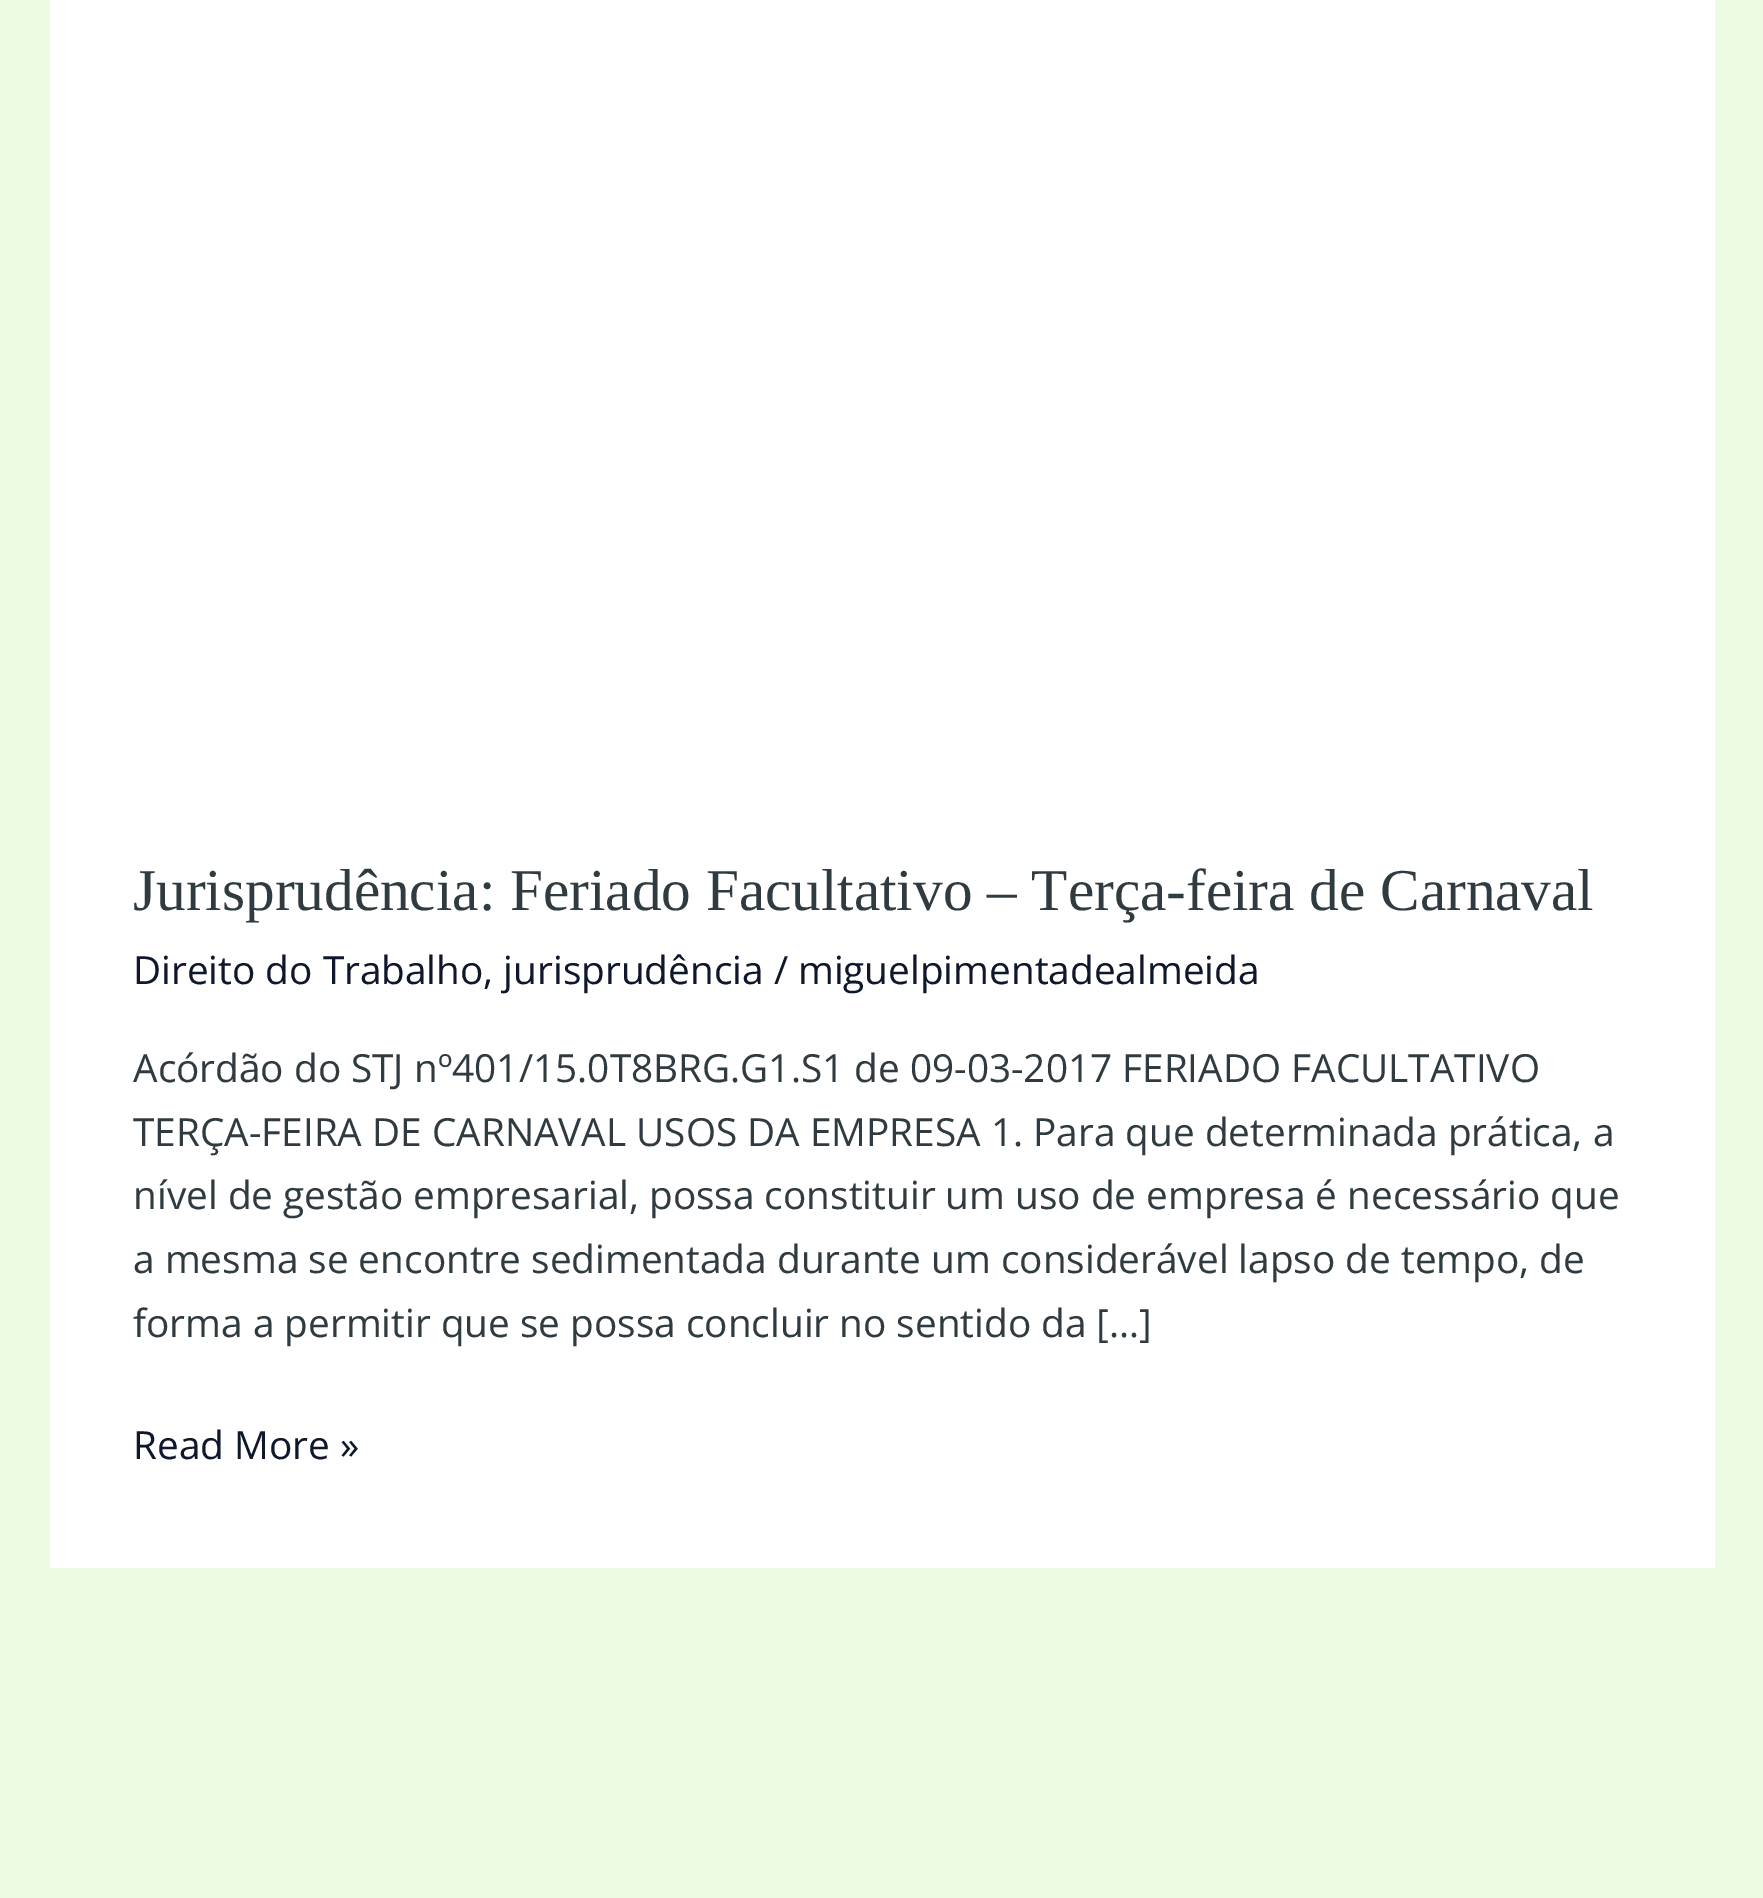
%!PS
<< /PageSize [1763 1898] >> setpagedevice
/rgb { dup -16 bitshift 255 div exch dup -8 bitshift 255 and 255 div exch 255 and 255 div setrgbcolor } def
/font { [ exch dup neg 0 0 3 -1 roll 0 0 ] selectfont } def
/text { moveto show } def
0 1898 translate 1 -1 scale
4 setmiterlimit
/s1 { /LiberationSerif-Regular 59.25 font 16#2F3B40 rgb } def
/s2 { /OpenSans-Regular 38.75 font 16#0F172A rgb } def
/s3 { /OpenSans-Regular 38.75 font 16#2F3B40 rgb } def
16#EDFBE2 rgb
0 0 1763 1898 rectfill
16#FFFFFF rgb
50 0 1665 1568 rectfill
s1
(Jurisprudência: Feriado Facultativo – Terça-feira de Carnaval) 133 910 text
s2
(Direito do Trabalho, jurisprudência / miguelpimentadealmeida) 133 984 text
s3
(Acórdão do STJ nº401/15.0T8BRG.G1.S1 de 09-03-2017 FERIADO FACULTATIVO) 133 1082 text
(TERÇA-FEIRA DE CARNAVAL USOS DA EMPRESA 1. Para que determinada prática, a) 133 1146 text
(nível de gestão empresarial, possa constituir um uso de empresa é necessário que) 133 1209 text
(a mesma se encontre sedimentada durante um considerável lapso de tempo, de) 133 1273 text
(forma a permitir que se possa concluir no sentido da […]) 133 1337 text
s2
(Read More ») 133 1459 text
showpage
